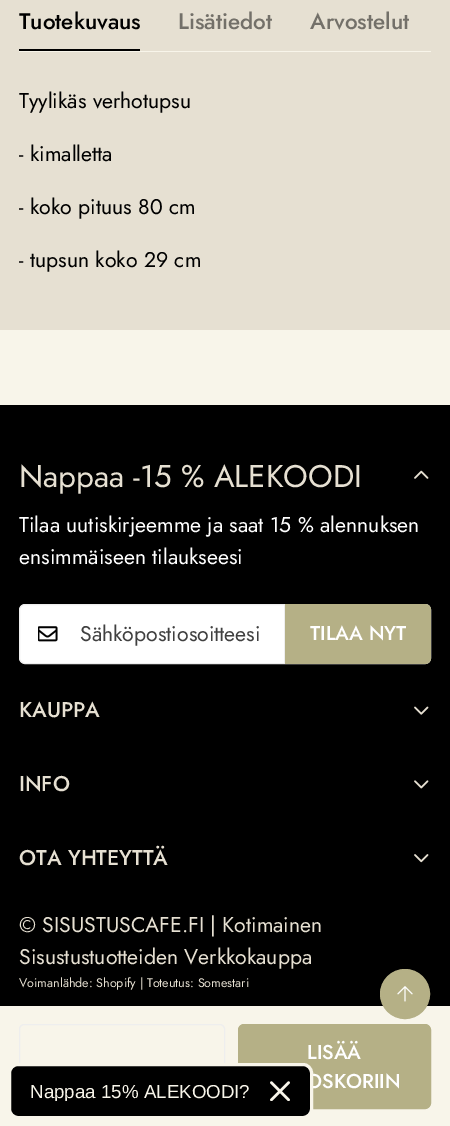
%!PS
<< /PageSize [450 1126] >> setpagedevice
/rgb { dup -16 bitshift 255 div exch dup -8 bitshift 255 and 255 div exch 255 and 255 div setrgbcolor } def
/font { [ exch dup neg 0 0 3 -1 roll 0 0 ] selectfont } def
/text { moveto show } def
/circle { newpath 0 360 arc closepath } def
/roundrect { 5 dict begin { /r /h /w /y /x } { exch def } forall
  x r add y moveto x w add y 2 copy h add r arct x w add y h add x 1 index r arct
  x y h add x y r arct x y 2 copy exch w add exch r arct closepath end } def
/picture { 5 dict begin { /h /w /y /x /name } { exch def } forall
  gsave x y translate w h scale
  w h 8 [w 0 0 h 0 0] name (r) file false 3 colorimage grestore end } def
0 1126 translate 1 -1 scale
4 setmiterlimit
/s1 { /Jost-Medium 22.5 font 16#000000 rgb } def
/s2 { /Jost-Medium 22.5 font 16#737069 rgb } def
/s3 { /Jost-Regular 21.25 font 16#000000 rgb } def
/s4 { /Jost-Medium 20 font 16#FFFFFF rgb } def
/s5 { /Jost-Regular 31.25 font 16#E6E0D2 rgb } def
/s6 { /Jost-Regular 21.25 font 16#FFFFFF rgb } def
/s7 { /Jost-Regular 21.25 font 16#404040 rgb } def
/s8 { /Jost-Medium 21.25 font 16#E6E0D2 rgb } def
/s9 { /Jost-Regular 21.25 font 16#E6E0D2 rgb } def
/s10 { /Jost-Regular 12.5 font 16#E6E0D2 rgb } def
/s11 { /LiberationSans-Regular 18.75 font 16#F8F5EA rgb } def
16#F8F5EA rgb
0 0 450 1126 rectfill
16#E6E0D2 rgb
0 0 450 330 rectfill
16#F8F5EA rgb
19 51 412 1 rectfill
s1
(Tuotekuvaus) 19 29 text
19 49 121 2 rectfill
s2
(Lisätiedot) 178 29 text
(Arvostelut) 310 29 text
s3
(Tyylikäs verhotupsu) 19 108 text
(- kimalletta) 19 161 text
(- koko pituus 80 cm) 19 214 text
(- tupsun koko 29 cm) 19 267 text
16#EEEEEE rgb
19.5 1024.5 205 84 4.5 roundrect stroke
16#B5B086 rgb
238.5 1024.5 192 84 5.5 roundrect gsave fill grestore
stroke
s4
(LISÄÄ) 307 1059 text
(OSKORIIN) 306 1088 text
16#000000 rgb
0 405 450 601 rectfill
s5
(Nappaa -15 % ALEKOODI) 19 487 text
(pic1.raw) 414 470 15 9 picture
s6
(Tilaa uutiskirjeemme ja saat 15 % alennuksen) 19 532 text
(ensimmäiseen tilaukseesi) 19 564 text
19.5 604.5 411 59 5.5 roundrect gsave fill grestore
16#EEEEEE rgb
stroke
(pic2.raw) 38 626 20 16 picture
s7
(Sähköpostiosoitteesi) 80 641 text
16#B5B086 rgb
285 604 moveto 425 604 lineto 428.5 604 431 606.5 431 610 curveto 431 658 lineto 431 661.5 428.5 664 425 664 curveto 285 664 lineto closepath fill
16#EEEEEE rgb
284 604 1 60 rectfill
s4
(TILAA NYT) 310 640 text
s8
(KAUPPA) 19 717 text
(pic3.raw) 414 706 15 9 picture
(INFO) 19 791 text
(pic4.raw) 414 780 15 9 picture
(OTA YHTEYTTÄ) 19 865 text
(pic5.raw) 414 854 15 9 picture
s9
(© SISUSTUSCAFE.FI | Kotimainen) 19 932 text
(Sisustustuotteiden Verkkokauppa) 19 964 text
s10
(Voimanlähde: Shopify | Toteutus: Somestari) 19 987 text
16#B5B086 rgb
405 994 24.5 circle gsave fill grestore
stroke
(pic6.raw) 397 986 16 16 picture
16#000000 rgb
9.5 1064.5 302 53 8.5 roundrect gsave fill grestore
16#F8F5EA rgb
3 setlinewidth
stroke
gsave
30 1080 220 21 rectclip
s11
(Nappaa 15% ALEKOODI?) 30 1098 text
grestore
(pic7.raw) 270 1081 20 20 picture
showpage
